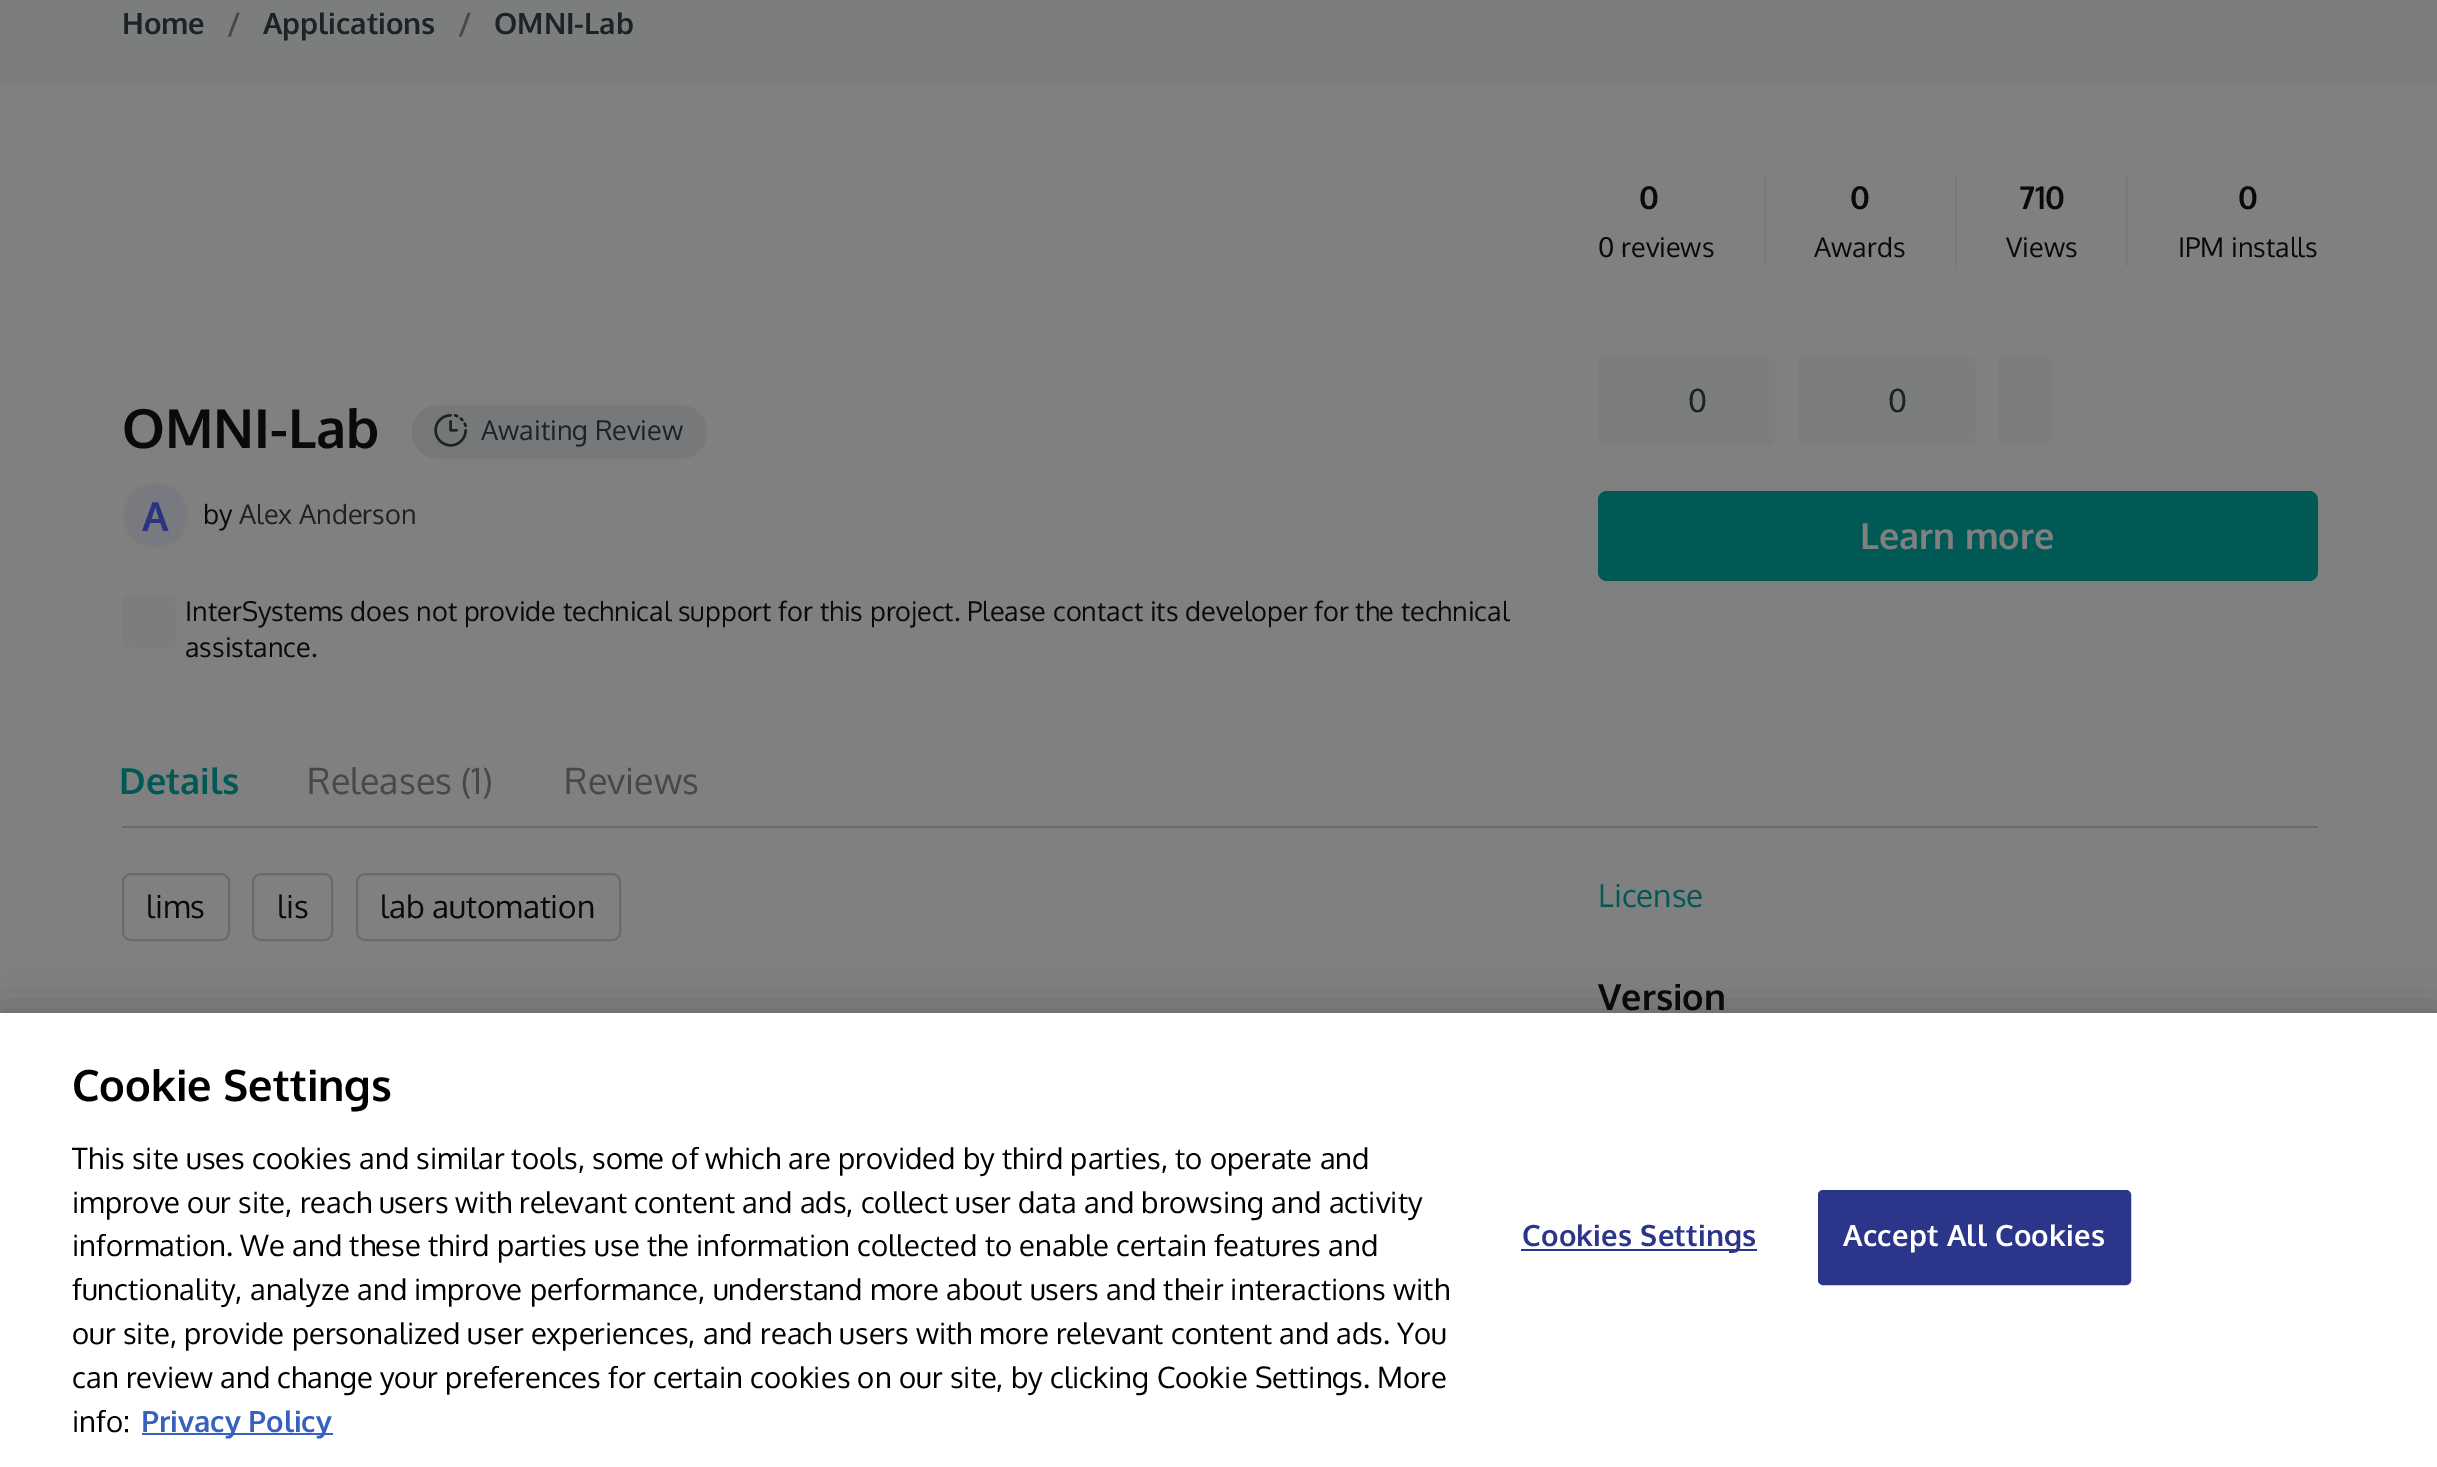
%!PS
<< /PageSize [2437 1467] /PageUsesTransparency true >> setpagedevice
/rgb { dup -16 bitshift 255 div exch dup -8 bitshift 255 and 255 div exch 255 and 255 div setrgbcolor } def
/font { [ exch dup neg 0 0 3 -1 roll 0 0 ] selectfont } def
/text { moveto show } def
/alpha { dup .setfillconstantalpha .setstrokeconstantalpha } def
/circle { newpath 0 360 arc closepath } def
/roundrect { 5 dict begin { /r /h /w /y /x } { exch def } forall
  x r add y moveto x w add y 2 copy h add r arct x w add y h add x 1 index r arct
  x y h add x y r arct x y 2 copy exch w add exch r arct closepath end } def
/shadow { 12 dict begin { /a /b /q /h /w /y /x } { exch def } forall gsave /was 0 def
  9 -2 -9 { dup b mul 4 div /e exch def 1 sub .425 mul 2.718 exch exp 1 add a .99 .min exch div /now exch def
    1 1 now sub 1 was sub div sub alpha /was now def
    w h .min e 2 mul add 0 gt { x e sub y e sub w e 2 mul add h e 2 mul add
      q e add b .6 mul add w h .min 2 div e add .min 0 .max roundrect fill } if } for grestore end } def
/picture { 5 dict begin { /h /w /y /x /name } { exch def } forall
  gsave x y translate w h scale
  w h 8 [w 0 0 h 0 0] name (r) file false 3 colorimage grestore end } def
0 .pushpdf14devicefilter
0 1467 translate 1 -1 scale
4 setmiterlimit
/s1 { /Oxygen-Bold 29.25 font 16#1D2227 rgb } def
/s2 { /Oxygen-Bold 29.25 font 16#484848 rgb } def
/s3 { /Oxygen-Bold 54 font 16#0B0A0A rgb } def
/s4 { /Oxygen-Regular 27 font 16#1D2227 rgb } def
/s5 { /Oxygen-Bold 40 font 16#2B3480 rgb } def
/s6 { /Oxygen-Regular 27 font 16#0B0A0A rgb } def
/s7 { /Oxygen-Bold 31.5 font 16#0B0A0A rgb } def
/s8 { /Oxygen-Regular 31.5 font 16#1D2227 rgb } def
/s9 { /Oxygen-Bold 36 font 16#808080 rgb } def
/s10 { /Oxygen-Bold 36 font 16#005955 rgb } def
/s11 { /Oxygen-Regular 36 font 16#484848 rgb } def
/s12 { /Oxygen-Regular 31.5 font 16#0B0A0A rgb } def
/s13 { /Oxygen-Regular 31.5 font 16#005955 rgb } def
/s14 { /Oxygen-Bold 36 font 16#0B0A0A rgb } def
/s15 { /Oxygen-Bold 43.25 font 16#000000 rgb } def
/s16 { /Oxygen-Regular 29.25 font 16#000000 rgb } def
/s17 { /Oxygen-Bold 29.25 font 16#3860BE rgb } def
16#808080 rgb
0 0 2437 1467 rectfill
16#7C7D7D rgb
0 0 2437 86 rectfill
s1
(Home) 122 34 text
s2
(/) 227 34 text
s1
(Applications) 263 34 text
s2
(/) 458 34 text
s1
(OMNI-Lab) 494 34 text
s3
(OMNI-Lab) 122 448 text
16#777879 rgb
412 405 295 54 27 roundrect fill
(pic1.raw) 434 414 33 33 picture
s4
(Awaiting Review) 481 440 text
16#797A80 rgb
155.5 515.5 32.5 circle gsave fill grestore
16#7C7D7D rgb
2 setlinewidth
stroke
s5
(A) 142 531 text
s6
(by) 203 524 text
s4
(Alex Anderson) 239 524 text
16#7C7D7D rgb
122 594 54 54 9 roundrect fill
s6
(InterSystems does not provide technical support for this project. Please contact its developer for the technical) 185 621 text
(assistance.) 185 657 text
s7
(0) 1639 209 text
s6
(0 reviews) 1598 257 text
16#767879 rgb
1764 176 2 90 rectfill
s7
(0) 1850 209 text
s6
(Awards) 1814 257 text
16#767879 rgb
1955 176 2 90 rectfill
s7
(710) 2019 209 text
s6
(Views) 2006 257 text
16#767879 rgb
2126 176 2 90 rectfill
s7
(0) 2238 209 text
s6
(IPM installs) 2178 257 text
16#7C7D7D rgb
1598 356 177 90 9 roundrect fill
s8
(0) 1688 412 text
16#7C7D7D rgb
1798 356 178 90 9 roundrect fill
s8
(0) 1888 412 text
16#7C7D7D rgb
1998 356 54 90 9 roundrect fill
16#005955 rgb
1598 491 720 90 9 roundrect fill
s9
(Learn more) 1860 549 text
s10
(Details) 119 794 text
s11
(Releases \(1\)) 307 794 text
(Reviews) 564 794 text
16#696B6A rgb
122 826 2196 2 rectfill
123 874 106 66 8 roundrect stroke
s12
(lims) 146 918 text
16#696B6A rgb
253 874 79 66 8 roundrect stroke
s12
(lis) 277 918 text
16#696B6A rgb
357 874 263 66 8 roundrect stroke
s12
(lab automation) 380 918 text
s13
(License) 1598 907 text
s14
(Version) 1598 1010 text
16#000000 rgb
0 1013 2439 454 0 20 0.2 shadow
16#FFFFFF rgb
0 1013 2437 454 rectfill
s15
(Cookie Settings) 72 1101 text
s16
(This site uses cookies and similar tools, some of which are provided by third parties, to operate and) 72 1169 text
(improve our site, reach users with relevant content and ads, collect user data and browsing and activity) 72 1213 text
(information. We and these third parties use the information collected to enable certain features and) 72 1256 text
(functionality, analyze and improve performance, understand more about users and their interactions with) 72 1300 text
(our site, provide personalized user experiences, and reach users with more relevant content and ads. You) 72 1344 text
(can review and change your preferences for certain cookies on our site, by clicking Cookie Settings. More) 72 1388 text
(info:) 72 1432 text
16#3860BE rgb
142 1433 191 2 rectfill
s17
(Privacy Policy) 141 1432 text
16#2B3589 rgb
1521 1249 236 2 rectfill
1522 1246 moveto 0.25 0 (Cookies Settings) ashow
1819 1191 311 93 4 roundrect gsave fill grestore
stroke
16#FFFFFF rgb
1843 1246 moveto 0.25 0 (Accept All Cookies) ashow
.poppdf14devicefilter showpage
